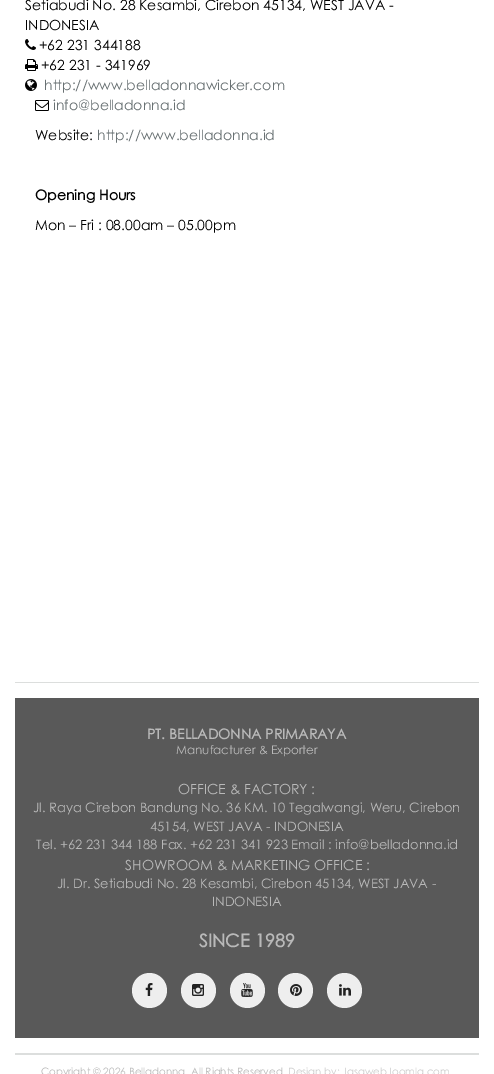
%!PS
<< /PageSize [494 1074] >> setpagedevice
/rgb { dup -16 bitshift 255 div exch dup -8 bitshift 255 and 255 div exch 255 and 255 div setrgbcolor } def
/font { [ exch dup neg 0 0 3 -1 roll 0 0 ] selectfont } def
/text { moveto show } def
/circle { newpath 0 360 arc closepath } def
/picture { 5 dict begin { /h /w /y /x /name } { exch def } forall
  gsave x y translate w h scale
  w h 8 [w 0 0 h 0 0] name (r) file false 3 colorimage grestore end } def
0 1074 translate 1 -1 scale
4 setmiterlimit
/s1 { /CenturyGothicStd-Regular 14 font 16#000000 rgb } def
/s2 { /CenturyGothicStd-Regular 14 font 16#697173 rgb } def
/s3 { /CenturyGothicStd-Bold 14 font 16#000000 rgb } def
/s4 { /CenturyGothicStd-Bold 14 font 16#B9B9B9 rgb } def
/s5 { /CenturyGothicStd-Regular 11.9 font 16#B9B9B9 rgb } def
/s6 { /CenturyGothicStd-Regular 14 font 16#B9B9B9 rgb } def
/s7 { /CenturyGothicStd-Regular 13 font 16#B9B9B9 rgb } def
/s8 { /CenturyGothicStd-Bold 18 font 16#B9B9B9 rgb } def
/s9 { /CenturyGothicStd-Regular 10.2 font 16#B9B9B9 rgb } def
/s10 { /CenturyGothicStd-Regular 10.2 font 16#CCCCCC rgb } def
16#FFFFFF rgb
0 0 494 1074 rectfill
s1
(Setiabudi No. 28 Kesambi, Cirebon 45134, WEST JAVA -) 25 10 text
(INDONESIA) 25 30 text
(pic1.raw) 25 39 11 11 picture
(+62 231 344188) 39 50 text
(pic2.raw) 25 59 13 12 picture
(+62 231 - 341969) 41 70 text
(pic3.raw) 25 79 12 12 picture
s2
(http://www.belladonnawicker.com) 44 90 text
(pic4.raw) 35 100 14 11 picture
(info@belladonna.id) 53 110 text
s1
(Website:) 35 140 text
s2
(http://www.belladonna.id) 97 140 text
s3
(Opening Hours) 35 200 text
s1
(Mon – Fri : 08.00am – 05.00pm) 35 230 text
16#DCDEDD rgb
15 682 464 1 rectfill
15 1053 464 2 rectfill
16#595959 rgb
15 698 464 340 rectfill
s4
(PT. BELLADONNA PRIMARAYA) 147 739 text
s5
(Manufacturer & Exporter) 176 754 text
s6
(OFFICE & FACTORY :) 178 794 text
s7
(Jl. Raya Cirebon Bandung No. 36 KM. 10 Tegalwangi, Weru, Cirebon) 33 812 text
(45154, WEST JAVA - INDONESIA) 150 831 text
(Tel. +62 231 344 188 Fax. +62 231 341 923 Email : info@belladonna.id) 36 849 text
s6
(SHOWROOM & MARKETING OFFICE :) 125 870 text
s7
(Jl. Dr. Setiabudi No. 28 Kesambi, Cirebon 45134, WEST JAVA -) 57 888 text
(INDONESIA) 212 906 text
s8
(SINCE 1989) 199 947 text
16#EEEEEE rgb
149.5 990.5 17.5 circle fill
(pic5.raw) 145 983 8 13 picture
198.5 990.5 17.5 circle fill
(pic6.raw) 192 984 12 12 picture
247.5 990.5 17.5 circle fill
(pic7.raw) 241 983 12 14 picture
295.5 990.5 17.5 circle fill
(pic8.raw) 290 984 12 12 picture
344.5 990.5 17.5 circle fill
(pic9.raw) 339 984 12 12 picture
s9
(Copyright © 2026 Belladonna. All Rights Reserved) 41 1075 text
s10
(Design by: JasawebJoomla.com) 288 1075 text
showpage
